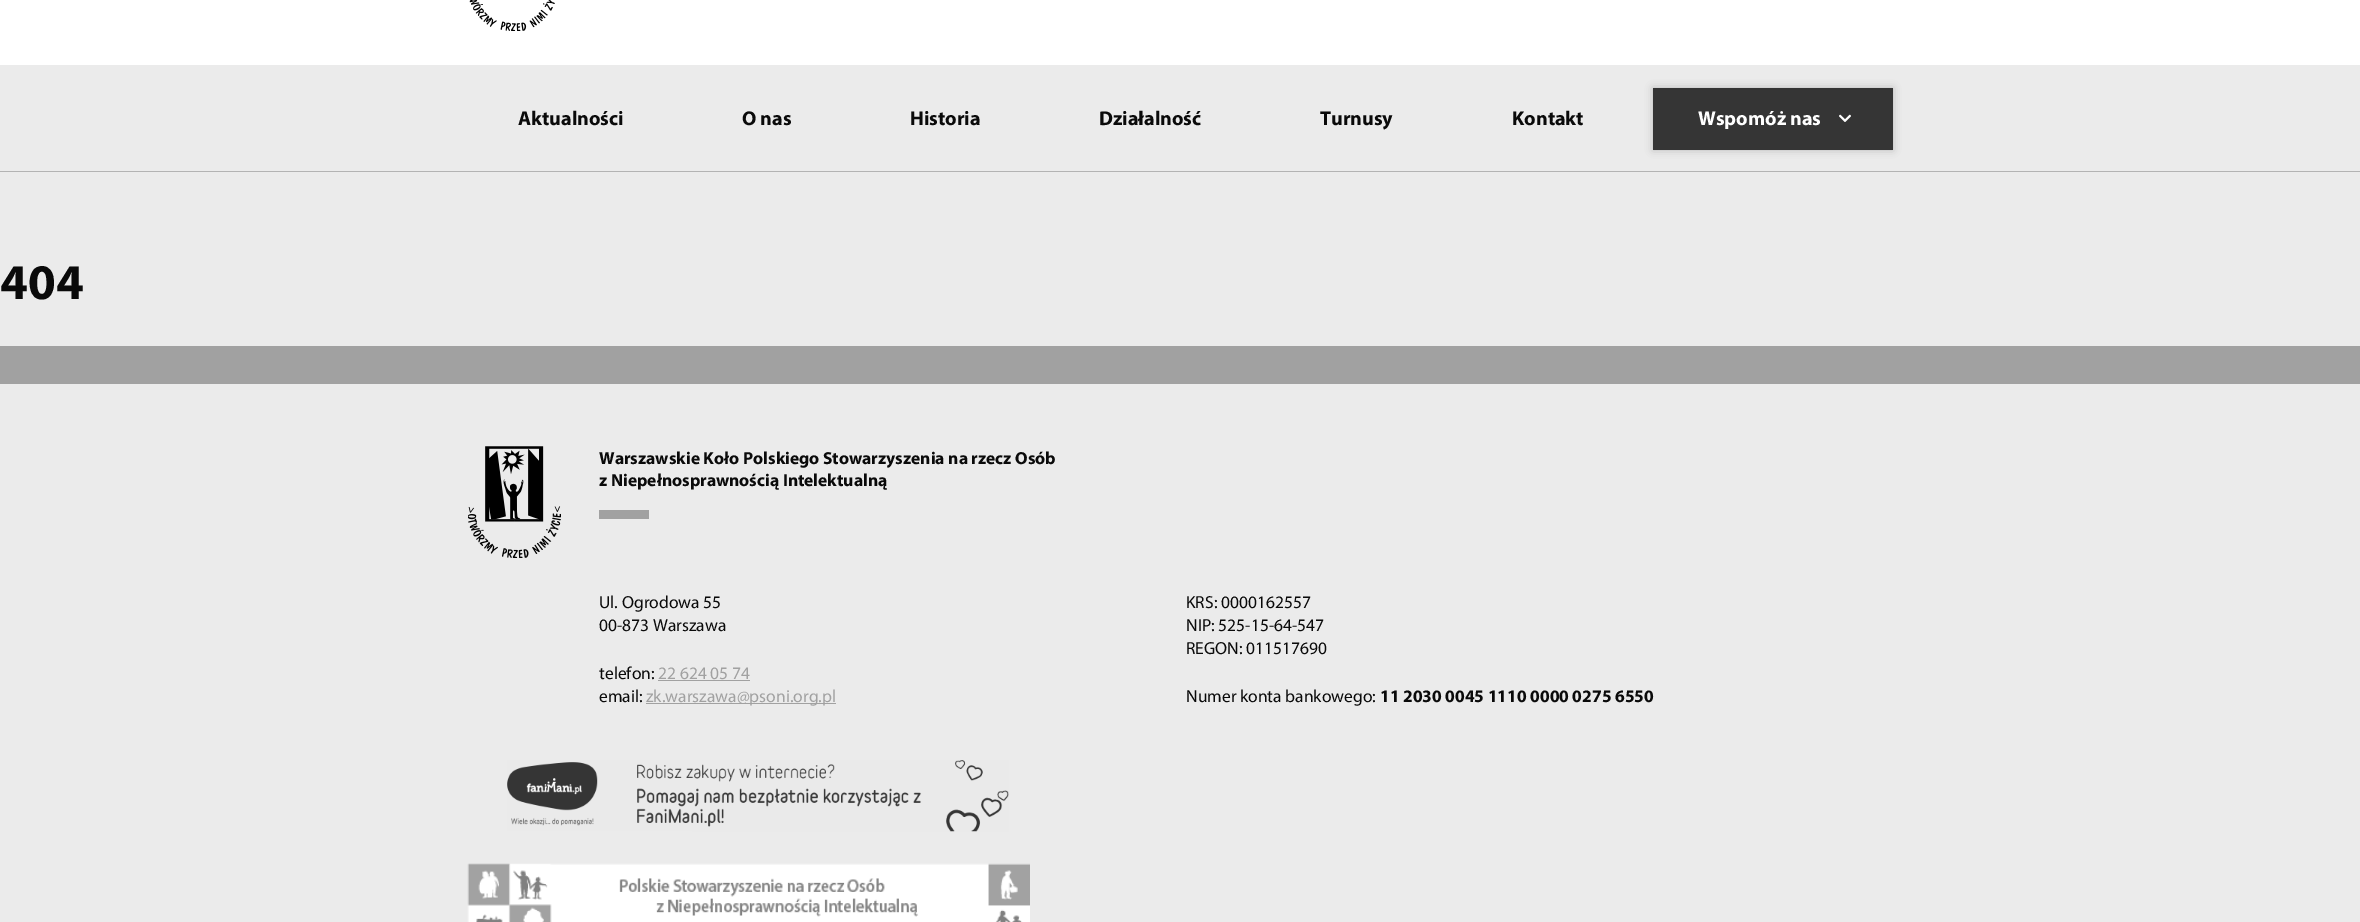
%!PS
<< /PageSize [2360 922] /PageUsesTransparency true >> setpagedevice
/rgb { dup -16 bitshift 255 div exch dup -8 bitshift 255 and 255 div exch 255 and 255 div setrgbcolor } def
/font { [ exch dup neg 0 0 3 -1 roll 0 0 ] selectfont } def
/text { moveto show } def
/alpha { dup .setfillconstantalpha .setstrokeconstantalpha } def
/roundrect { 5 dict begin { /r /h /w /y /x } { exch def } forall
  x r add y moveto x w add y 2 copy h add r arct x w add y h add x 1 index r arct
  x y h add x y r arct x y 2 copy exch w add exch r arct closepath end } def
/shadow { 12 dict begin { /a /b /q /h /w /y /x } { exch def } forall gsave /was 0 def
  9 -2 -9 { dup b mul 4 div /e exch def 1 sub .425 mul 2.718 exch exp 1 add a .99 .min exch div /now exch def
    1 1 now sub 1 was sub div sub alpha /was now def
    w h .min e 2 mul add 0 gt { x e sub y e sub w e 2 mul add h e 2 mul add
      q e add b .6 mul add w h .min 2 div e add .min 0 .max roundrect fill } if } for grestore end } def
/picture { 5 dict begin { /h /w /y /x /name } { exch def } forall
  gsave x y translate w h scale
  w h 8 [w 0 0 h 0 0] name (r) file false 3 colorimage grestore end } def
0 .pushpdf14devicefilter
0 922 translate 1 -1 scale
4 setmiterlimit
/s1 { /Myriad-Bold 20 font 16#0A0A0A rgb } def
/s2 { /Myriad-Bold 20 font 16#FFFFFF rgb } def
/s3 { /Myriad-Bold 50 font 16#0A0A0A rgb } def
/s4 { /Myriad-Bold 17.5 font 16#0A0A0A rgb } def
/s5 { /Myriad-Regular 17.5 font 16#0A0A0A rgb } def
/s6 { /Myriad-Regular 17.5 font 16#A1A1A1 rgb } def
16#EBEBEB rgb
0 0 2360 922 rectfill
16#FFFFFF rgb
0 0 2360 65 rectfill
(pic1.raw) 469 0 86 31 picture
16#B3B3B3 rgb
0 171 2360 1 rectfill
s1
(Aktualności) 518 125 text
(O nas) 742 125 text
(Historia) 910 125 text
(Działalność) 1099 125 text
(Turnusy) 1320 125 text
(Kontakt) 1512 125 text
16#000000 rgb
1653 88 240 62 0 4 0.2 shadow
16#353535 rgb
1653 88 240 62 rectfill
s2
(Wspomóż nas) 1698 125 text
(pic2.raw) 1839 114 12 8 picture
s3
(404) 0 299 text
16#A1A1A1 rgb
0 346 2360 38 rectfill
(pic3.raw) 468 446 93 112 picture
s4
(Warszawskie Koło Polskiego Stowarzyszenia na rzecz Osób) 599 464 text
(z Niepełnosprawnością Intelektualną) 599 486 text
16#A1A1A1 rgb
599 510 50 9 rectfill
s5
(Ul. Ogrodowa 55) 599 608 text
(00-873 Warszawa) 599 631 text
(telefon:) 599 679 text
s6
(22 624 05 74) 658 679 text
658 680 92 1 rectfill
s5
(email:) 599 702 text
16#A1A1A1 rgb
646 703 190 1 rectfill
(zk.warszawa@psoni.org.pl) 646 702 text
s5
(KRS: 0000162557) 1186 608 text
(NIP: 525-15-64-547) 1186 631 text
(REGON: 011517690) 1186 654 text
(Numer konta bankowego:) 1186 702 text
s4
(11 2030 0045 1110 0000 0275 6550) 1380 702 text
(pic4.raw) 507 760 502 72 picture
(pic5.raw) 467 863 563 59 picture
.poppdf14devicefilter showpage
